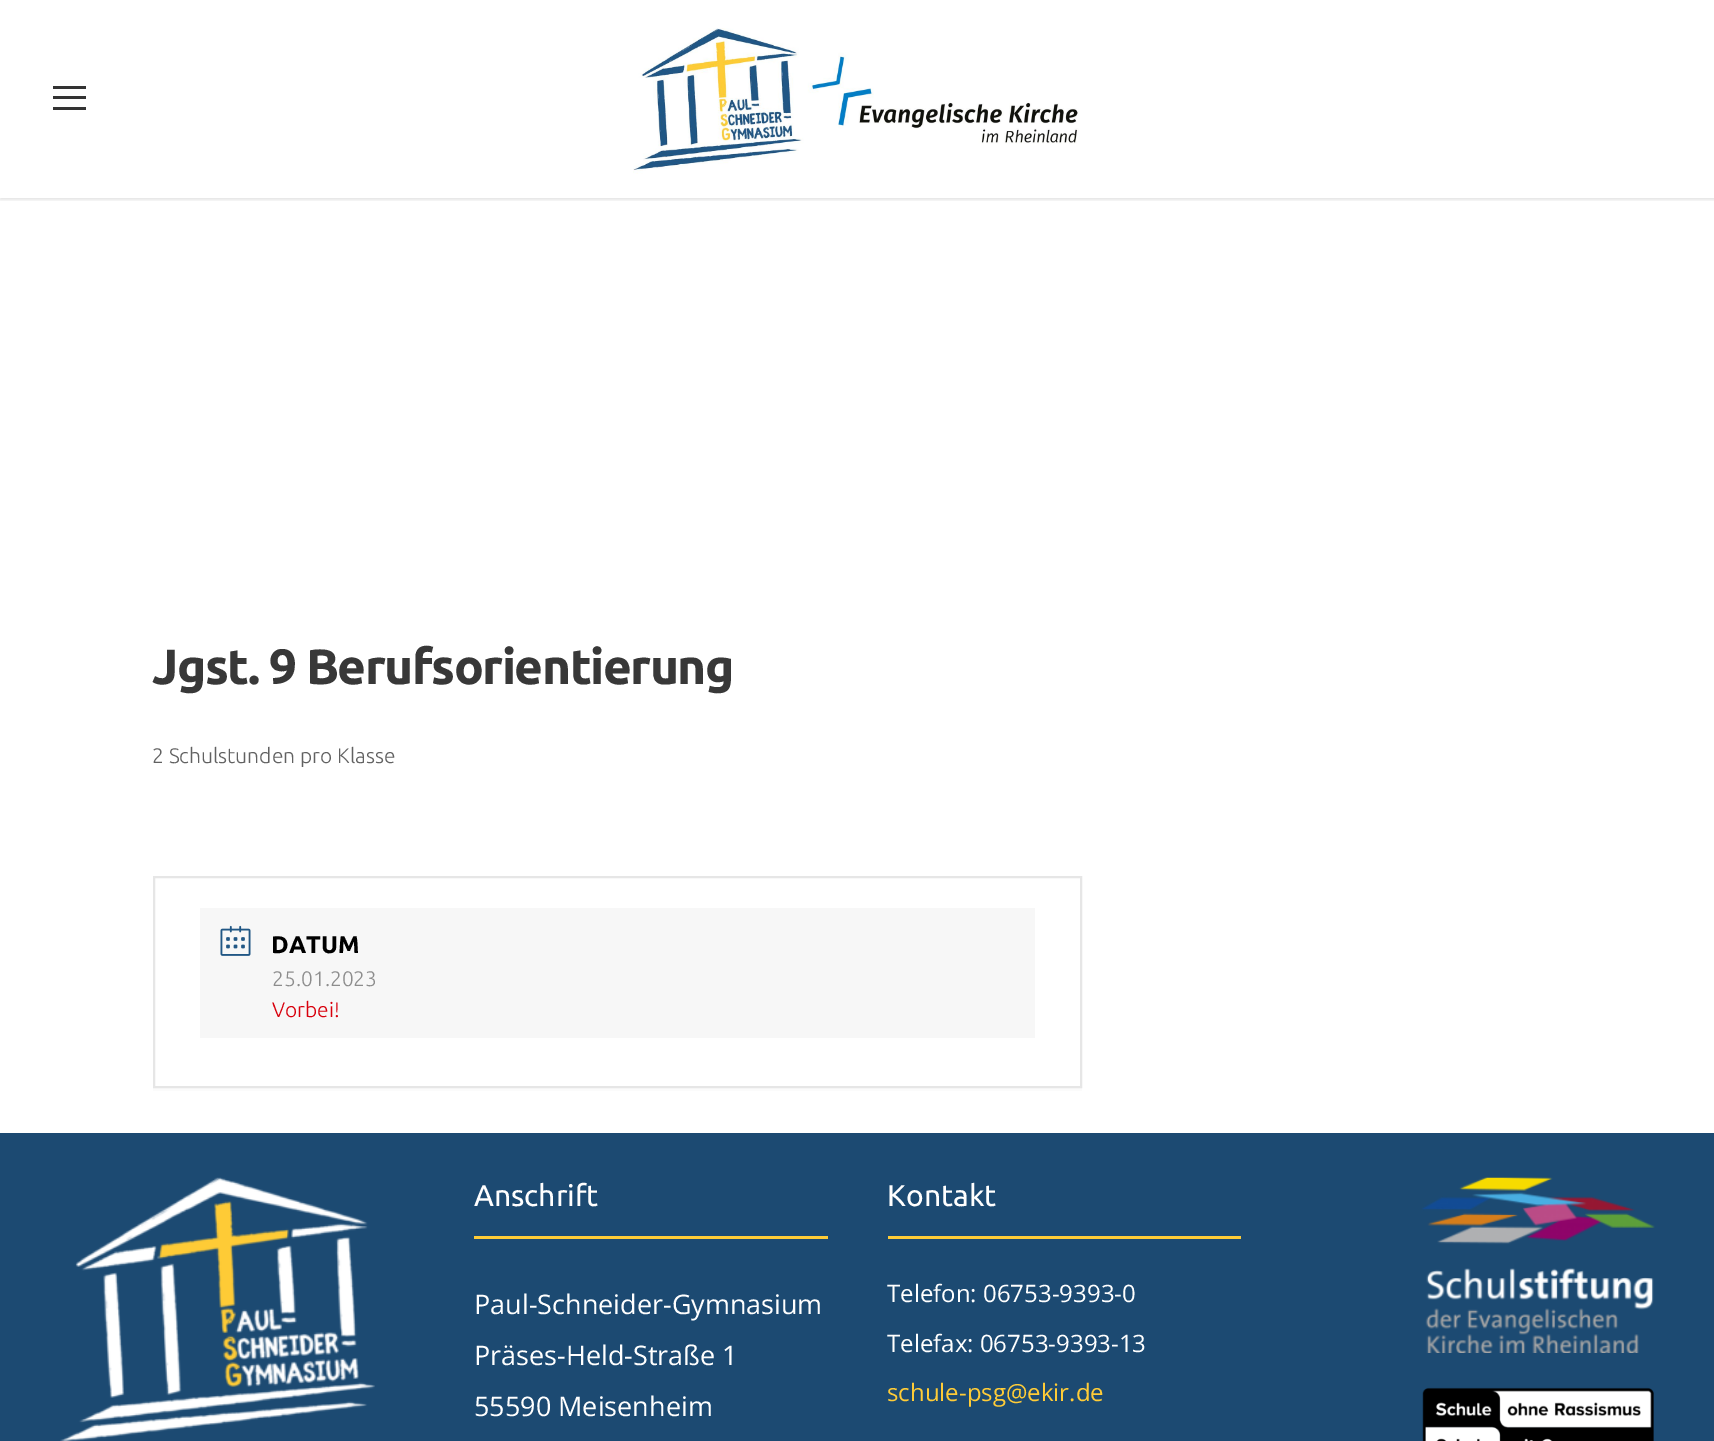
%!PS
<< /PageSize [1714 1441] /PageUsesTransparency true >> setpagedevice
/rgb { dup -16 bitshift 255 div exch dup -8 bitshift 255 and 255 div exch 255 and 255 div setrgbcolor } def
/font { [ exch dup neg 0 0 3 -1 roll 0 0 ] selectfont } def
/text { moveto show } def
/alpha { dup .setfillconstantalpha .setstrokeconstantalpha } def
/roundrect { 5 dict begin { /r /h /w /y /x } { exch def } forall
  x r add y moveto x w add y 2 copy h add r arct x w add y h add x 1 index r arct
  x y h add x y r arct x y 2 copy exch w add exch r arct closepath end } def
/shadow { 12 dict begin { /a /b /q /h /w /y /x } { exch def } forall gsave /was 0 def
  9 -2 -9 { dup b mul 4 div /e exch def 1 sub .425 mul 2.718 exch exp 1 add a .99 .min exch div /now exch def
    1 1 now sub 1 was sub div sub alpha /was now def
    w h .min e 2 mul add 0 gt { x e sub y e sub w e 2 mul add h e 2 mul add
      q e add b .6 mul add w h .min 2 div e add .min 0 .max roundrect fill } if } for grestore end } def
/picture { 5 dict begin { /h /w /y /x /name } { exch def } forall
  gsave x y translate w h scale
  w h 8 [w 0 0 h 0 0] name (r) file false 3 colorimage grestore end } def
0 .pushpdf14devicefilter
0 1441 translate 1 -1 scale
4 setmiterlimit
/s1 { /Ubuntu-Light 21 font 16#616161 rgb } def
/s2 { /Ubuntu-Bold 24 font 16#000000 rgb } def
/s3 { /Ubuntu-Light 21 font 16#8D8D8D rgb } def
/s4 { /Ubuntu-Light 21 font 16#D8000C rgb } def
/s5 { /Ubuntu-Regular 30 font 16#FFFFFF rgb } def
/s6 { /OpenSans-Regular 27 font 16#FFFFFF rgb } def
/s7 { /OpenSans-Regular 24 font 16#FFFFFF rgb } def
/s8 { /OpenSans-Regular 24 font 16#FFCC37 rgb } def
16#FFFFFF rgb
0 0 1714 1441 rectfill
gsave
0 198 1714 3 rectclip
16#000000 rgb
0 2 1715 198 0 1.5 0.1 shadow
grestore
16#333333 rgb
53 86 33 3 rectfill
53 96 33 3 rectfill
53 107 33 3 rectfill
(pic1.raw) 633 28 446 146 picture
/Ubuntu-Bold 49.5 font
16#383838 rgb
152 684 moveto -1.5 0 (Jgst. 9 Berufsorientierung) ashow
s1
(2 Schulstunden pro Klasse) 152 763 text
16#FBFBFB rgb
153 1088 moveto 153 1091 lineto 1082 1091 lineto 1082 879 lineto 1082 1088 lineto closepath fill
16#E6E6E6 rgb
2 setlinewidth
154 877 927 210 rectstroke
16#F7F7F7 rgb
200 908 835 130 rectfill
(pic2.raw) 220 925 31 31 picture
s2
(DATUM) 271 953 text
s3
(25.01.2023) 272 986 text
s4
(Vorbei!) 272 1017 text
16#1C4A72 rgb
0 1133 1714 308 rectfill
(pic3.raw) 60 1177 315 264 picture
16#FECC37 rgb
474 1236 354 3 rectfill
s5
(Anschrift) 474 1206 text
s6
(Paul-Schneider-Gymnasium) 474 1314 text
(Präses-Held-Straße 1) 474 1365 text
(55590 Meisenheim) 474 1416 text
16#FECC37 rgb
888 1236 353 3 rectfill
s5
(Kontakt) 887 1206 text
s7
(Telefon: 06753-9393-0) 887 1302 text
(Telefax: 06753-9393-13) 887 1352 text
s8
(schule-psg@ekir.de) 887 1401 text
(pic4.raw) 1422 1177 233 176 picture
(pic5.raw) 1422 1387 232 54 picture
.poppdf14devicefilter showpage
